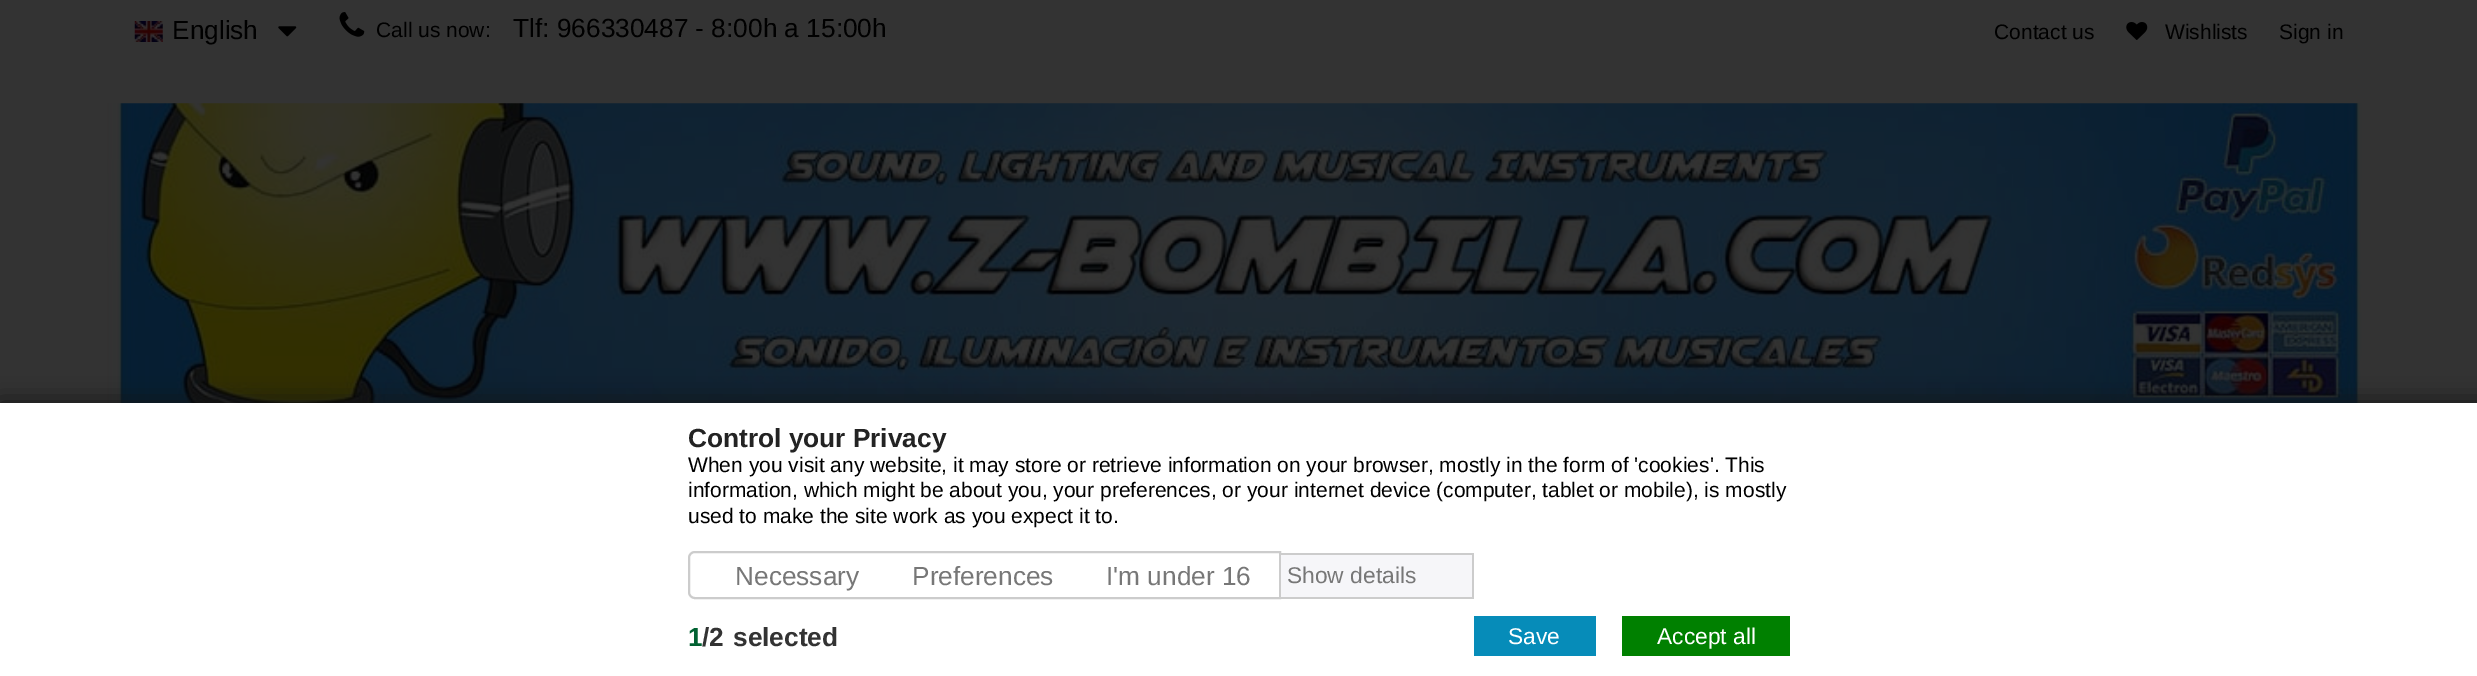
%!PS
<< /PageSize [2477 676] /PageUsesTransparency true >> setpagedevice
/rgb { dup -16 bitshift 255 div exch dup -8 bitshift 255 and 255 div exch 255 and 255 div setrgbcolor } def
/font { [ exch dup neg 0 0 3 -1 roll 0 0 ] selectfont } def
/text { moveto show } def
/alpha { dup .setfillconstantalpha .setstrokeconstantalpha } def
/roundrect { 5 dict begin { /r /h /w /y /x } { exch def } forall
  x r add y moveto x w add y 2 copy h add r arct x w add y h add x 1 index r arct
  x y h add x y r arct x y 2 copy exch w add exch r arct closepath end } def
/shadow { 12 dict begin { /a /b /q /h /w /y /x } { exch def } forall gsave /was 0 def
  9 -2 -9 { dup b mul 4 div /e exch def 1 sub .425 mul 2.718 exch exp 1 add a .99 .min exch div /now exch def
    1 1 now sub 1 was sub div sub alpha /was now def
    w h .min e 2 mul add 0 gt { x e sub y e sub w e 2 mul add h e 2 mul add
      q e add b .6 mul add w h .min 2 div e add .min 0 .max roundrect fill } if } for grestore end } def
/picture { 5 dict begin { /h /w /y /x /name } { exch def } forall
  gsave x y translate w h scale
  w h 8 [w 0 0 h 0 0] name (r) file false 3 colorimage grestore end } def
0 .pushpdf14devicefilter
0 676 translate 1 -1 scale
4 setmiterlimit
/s1 { /LiberationSans-Regular 26.25 font 16#000000 rgb } def
/s2 { /LiberationSans-Regular 21 font 16#000000 rgb } def
/s3 { /LiberationSans-Bold 26.25 font 16#232323 rgb } def
/s4 { /LiberationSans-Regular 26.25 font 16#777777 rgb } def
/s5 { /LiberationSans-Regular 22.75 font 16#777777 rgb } def
/s6 { /LiberationSans-Bold 26.25 font 16#006131 rgb } def
/s7 { /LiberationSans-Bold 26.25 font 16#333333 rgb } def
/s8 { /LiberationSans-Regular 22.75 font 16#FFFFFF rgb } def
16#333333 rgb
0 0 2477 676 rectfill
(pic1.raw) 134 21 29 21 picture
s1
(English) 172 39 text
(pic2.raw) 278 26 19 11 picture
(pic3.raw) 339 12 26 25 picture
s2
(Call us now:) 376 37 text
s1
(Tlf: 966330487 - 8:00h a 15:00h) 513 37 text
s2
(Contact us) 1994 39 text
(pic4.raw) 2126 22 22 18 picture
(Wishlists) 2165 39 text
(Sign in) 2279 39 text
(pic5.raw) 107 103 2255 300 picture
16#121212 rgb
0 403 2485 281 0 12 1 shadow
16#FFFFFF rgb
0 403 2477 273 rectfill
s3
(Control your Privacy) 688 447 text
s2
(When you visit any website, it may store or retrieve information on your browser, mostly in the form of 'cookies'. This) 688 472 text
(information, which might be about you, your preferences, or your internet device \(computer, tablet or mobile\), is mostly) 688 497 text
(used to make the site work as you expect it to.) 688 523 text
16#CCCCCC rgb
2 setlinewidth
695 552 moveto 1280 552 lineto 1280 598 lineto 695 598 lineto 691.5 598 689 595.5 689 592 curveto 689 558 lineto 689 554.5 691.5 552 695 552 curveto closepath stroke
s4
(Necessary) 735 585 text
(Preferences) 912 585 text
(I'm under 16) 1106 585 text
16#F6F6F9 rgb
1281 555 191 42 rectfill
16#CCCCCC rgb
1281 553 193 2 rectfill
1472 553 2 46 rectfill
1281 597 193 2 rectfill
s5
(Show details) 1287 583 text
s6
(1) 688 646 text
s7
(/2) 702 646 text
(selected) 733 646 text
16#068CB9 rgb
1474 616 122 40 rectfill
s8
(Save) 1508 644 text
16#008000 rgb
1622 616 168 40 rectfill
s8
(Accept all) 1657 644 text
.poppdf14devicefilter showpage
